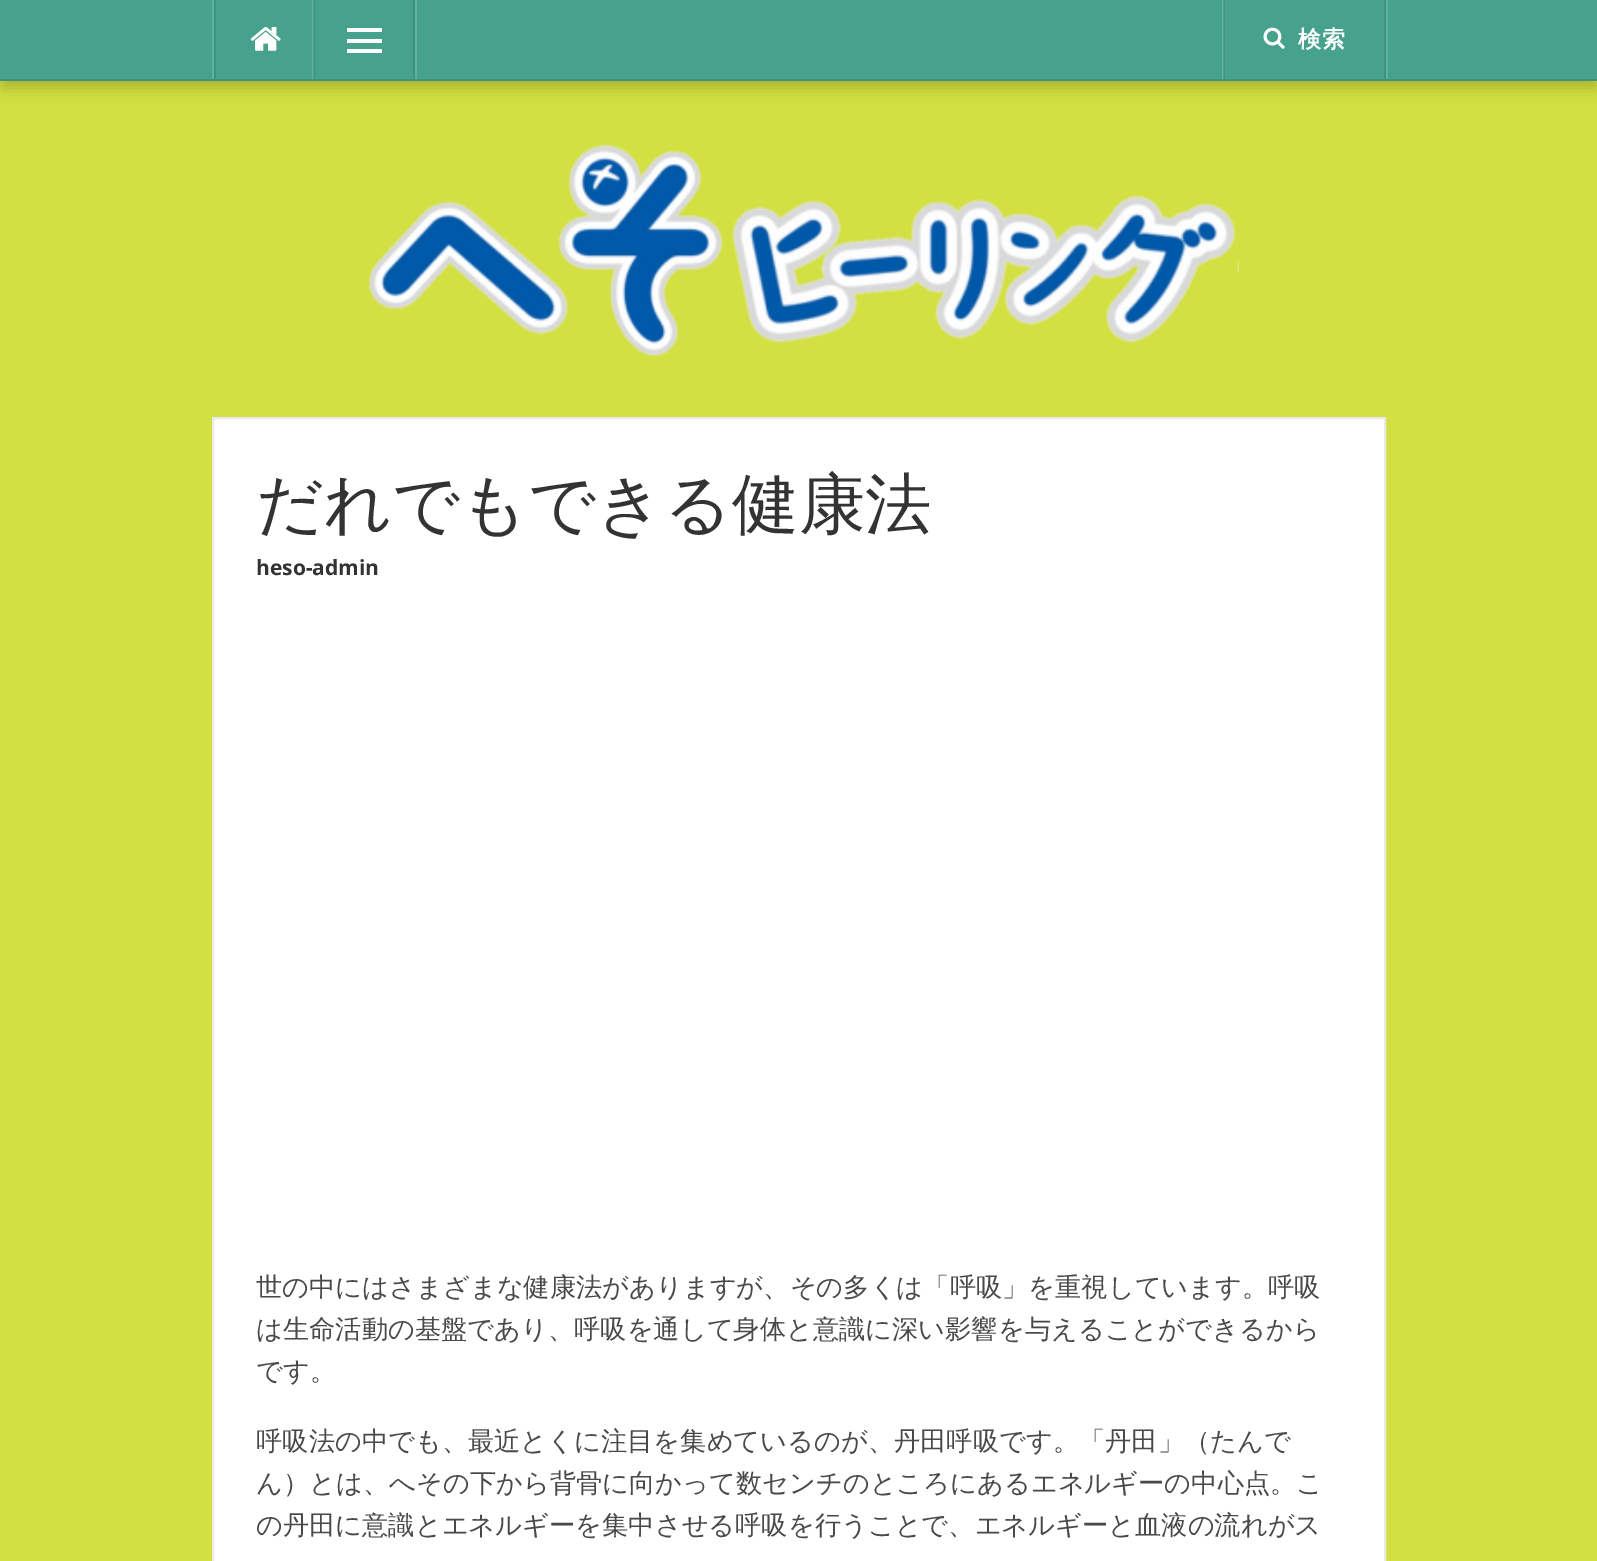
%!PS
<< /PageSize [1597 1561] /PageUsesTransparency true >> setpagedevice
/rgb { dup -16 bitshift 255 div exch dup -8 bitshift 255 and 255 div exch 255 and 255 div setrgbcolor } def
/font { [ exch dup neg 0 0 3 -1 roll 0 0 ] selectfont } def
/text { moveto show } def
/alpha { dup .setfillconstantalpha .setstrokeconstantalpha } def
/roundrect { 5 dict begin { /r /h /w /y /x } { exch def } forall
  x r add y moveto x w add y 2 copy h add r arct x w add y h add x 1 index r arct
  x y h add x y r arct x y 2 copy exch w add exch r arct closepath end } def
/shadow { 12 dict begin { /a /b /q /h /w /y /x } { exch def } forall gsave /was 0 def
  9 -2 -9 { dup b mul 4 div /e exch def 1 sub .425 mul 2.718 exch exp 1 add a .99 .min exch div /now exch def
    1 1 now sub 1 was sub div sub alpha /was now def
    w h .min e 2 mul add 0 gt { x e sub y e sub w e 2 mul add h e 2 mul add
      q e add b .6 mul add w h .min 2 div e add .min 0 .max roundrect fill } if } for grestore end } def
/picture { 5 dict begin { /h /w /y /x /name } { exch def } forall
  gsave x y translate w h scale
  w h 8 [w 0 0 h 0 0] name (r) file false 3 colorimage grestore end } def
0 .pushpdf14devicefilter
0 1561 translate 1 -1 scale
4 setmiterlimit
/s1 { /WenQuanYiZenHei-Medium 66.5 font 16#333333 rgb } def
/s2 { /OpenSans-Bold 21 font 16#333333 rgb } def
/s3 { /WenQuanYiZenHei-Medium 26.25 font 16#494949 rgb } def
16#D3E041 rgb
0 0 1597 1561 rectfill
16#000000 rgb
2 11 1594 77 0 7 0.2 shadow
16#46A28D rgb
0 0 1597 79 rectfill
16#3F927F rgb
1224 0 1 79 rectfill
314 0 1 79 rectfill
16#62B09E rgb
212 0 2 79 rectfill
16#3F927F rgb
214 0 2 79 rectfill
(pic1.raw) 250 27 31 24 picture
16#62B09E rgb
312 0 1 79 rectfill
16#589E8E rgb
313 0 1 79 rectfill
16#FFFFFF rgb
347 39 35 4 rectfill
347 28 35 4 rectfill
347 49 35 4 rectfill
16#3F927F rgb
413 0 2 79 rectfill
16#62B09E rgb
415 0 2 79 rectfill
1222 0 1 79 rectfill
16#589E8E rgb
1223 0 1 79 rectfill
(pic2.raw) 1263 27 22 22 picture
/WenQuanYiZenHei-Bold 23 font
16#FFFFFF rgb
1298 47 moveto 1 0 (検索) ashow
16#3F927F rgb
1384 0 2 79 rectfill
16#62B09E rgb
1386 0 2 79 rectfill
16#3F927F rgb
0 79 1597 2 rectfill
(pic3.raw) 368 144 871 213 picture
16#FFFFFF rgb
213 418 moveto 1385 418 lineto 1385 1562 lineto 213 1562 lineto closepath gsave fill grestore
16#E9E9E9 rgb
2 setlinewidth
stroke
s1
(だれでもできる健康法) 256 527 text
s2
(heso-admin) 256 575 text
s3
(世の中にはさまざまな健康法がありますが、その多くは「呼吸」を重視しています。呼吸) 256 1296 text
(は生命活動の基盤であり、呼吸を通して身体と意識に深い影響を与えることができるから) 256 1338 text
(です。) 256 1380 text
(呼吸法の中でも、最近とくに注目を集めているのが、丹田呼吸です。「丹田」（たんで) 256 1450 text
(ん）とは、へその下から背骨に向かって数センチのところにあるエネルギーの中心点。こ) 256 1492 text
(の丹田に意識とエネルギーを集中させる呼吸を行うことで、エネルギーと血液の流れがス) 256 1534 text
.poppdf14devicefilter showpage
